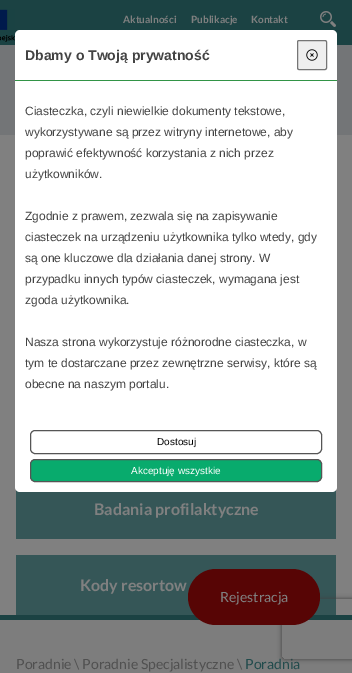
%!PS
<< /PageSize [352 673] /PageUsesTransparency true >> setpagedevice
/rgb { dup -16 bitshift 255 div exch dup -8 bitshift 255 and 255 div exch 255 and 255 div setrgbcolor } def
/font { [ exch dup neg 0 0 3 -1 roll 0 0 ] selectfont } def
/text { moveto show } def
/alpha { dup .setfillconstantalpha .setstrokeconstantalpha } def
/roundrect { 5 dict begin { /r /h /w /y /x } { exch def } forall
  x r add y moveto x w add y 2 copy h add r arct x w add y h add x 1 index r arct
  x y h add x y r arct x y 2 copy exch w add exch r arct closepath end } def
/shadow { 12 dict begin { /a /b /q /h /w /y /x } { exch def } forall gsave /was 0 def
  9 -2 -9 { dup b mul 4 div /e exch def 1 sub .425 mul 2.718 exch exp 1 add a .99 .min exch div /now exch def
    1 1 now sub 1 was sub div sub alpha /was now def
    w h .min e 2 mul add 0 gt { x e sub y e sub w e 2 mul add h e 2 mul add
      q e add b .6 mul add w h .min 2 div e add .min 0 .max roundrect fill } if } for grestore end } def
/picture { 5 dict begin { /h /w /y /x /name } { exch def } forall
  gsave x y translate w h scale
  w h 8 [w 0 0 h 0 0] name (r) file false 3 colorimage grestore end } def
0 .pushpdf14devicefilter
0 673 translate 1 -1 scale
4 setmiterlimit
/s1 { /Lato-Bold 10 font 16#808080 rgb } def
/s2 { /LiberationSans-Bold 14 font 16#434343 rgb } def
/s3 { /LiberationSans-Regular 12 font 16#434343 rgb } def
/s4 { /LiberationSans-Regular 10 font 16#000000 rgb } def
/s5 { /LiberationSans-Regular 10 font 16#FFFFFF rgb } def
/s6 { /Lato-Bold 16 font 16#808080 rgb } def
/s7 { /Lato-Regular 14 font 16#505050 rgb } def
/s8 { /Lato-Regular 14 font 16#224B4C rgb } def
/s9 { /Lato-Regular 14 font 16#808080 rgb } def
16#808080 rgb
0 0 352 673 rectfill
16#1B4243 rgb
0 0 352 45 rectfill
(pic1.raw) 0 9 15 33 picture
s1
(Aktualności) 123 23 text
(Publikacje) 191 23 text
(Kontakt) 251 23 text
(pic2.raw) 320 11 16 16 picture
16#737577 rgb
0 45 352 90 rectfill
16#355657 rgb
16 490 320 49 rectfill
16#FFFFFF rgb
15 30 322 462 5 roundrect fill
16#329446 rgb
15 80 322 1 rectfill
s2
(Dbamy o Twoją prywatność) 25 60 text
16#EFEFEF rgb
297.5 40.5 29 29 1.5 roundrect gsave fill grestore
16#767676 rgb
stroke
(pic3.raw) 306 49 12 12 picture
s3
(Ciasteczka, czyli niewielkie dokumenty tekstowe,) 25 115 text
(wykorzystywane są przez witryny internetowe, aby) 25 136 text
(poprawić efektywność korzystania z nich przez) 25 157 text
(użytkowników.) 25 178 text
(Zgodnie z prawem, zezwala się na zapisywanie) 25 220 text
(ciasteczek na urządzeniu użytkownika tylko wtedy, gdy) 25 241 text
(są one kluczowe dla działania danej strony. W) 25 262 text
(przypadku innych typów ciasteczek, wymagana jest) 25 283 text
(zgoda użytkownika.) 25 304 text
(Nasza strona wykorzystuje różnorodne ciasteczka, w) 25 346 text
(tym te dostarczane przez zewnętrzne serwisy, które są) 25 367 text
(obecne na naszym portalu.) 25 388 text
16#555555 rgb
30.5 430.5 291 23 4.5 roundrect stroke
s4
(Dostosuj) 157 445 text
16#08AB6D rgb
30.5 459.5 291 22 4.5 roundrect gsave fill grestore
16#555555 rgb
stroke
s5
(Akceptuję wszystkie) 131 474 text
16#1B4243 rgb
0 615 352 5 rectfill
s6
(Badania profilaktyczne) 94 515 text
16#355657 rgb
16 555 320 60 rectfill
s6
(Kody resortow) 80 591 text
16#7D7D7D rgb
0 620 352 53 rectfill
s7
(Poradnie \\ Poradnie Specjalistyczne \\) 16 669 text
s8
(Poradnia) 245 669 text
gsave
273 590 moveto 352 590 lineto 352 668 lineto 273 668 lineto closepath 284 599 moveto 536 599 lineto 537 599 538 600 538 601 curveto 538 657 lineto 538 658 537 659 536 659 curveto 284 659 lineto 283 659 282 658 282 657 curveto 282 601 lineto 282 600 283 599 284 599 curveto closepath eoclip newpath
16#404040 rgb
282 599 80 60 2 2.5 1 shadow
grestore
16#570505 rgb
188 569 132 56 28 roundrect fill
s9
(Rejestracja) 220 602 text
.poppdf14devicefilter showpage
